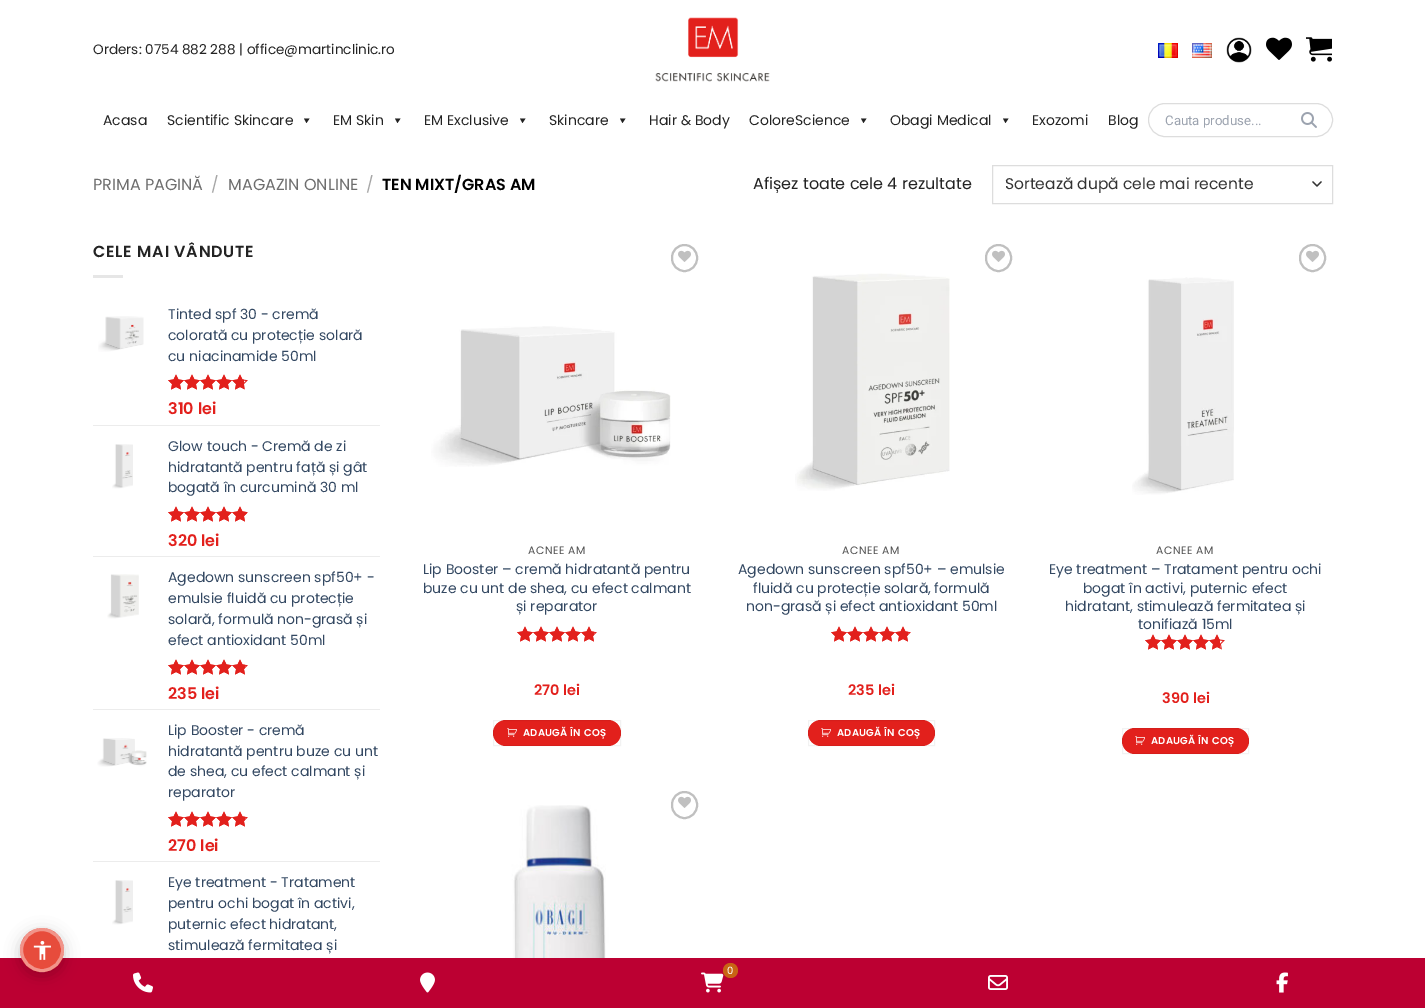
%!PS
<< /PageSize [1425 1008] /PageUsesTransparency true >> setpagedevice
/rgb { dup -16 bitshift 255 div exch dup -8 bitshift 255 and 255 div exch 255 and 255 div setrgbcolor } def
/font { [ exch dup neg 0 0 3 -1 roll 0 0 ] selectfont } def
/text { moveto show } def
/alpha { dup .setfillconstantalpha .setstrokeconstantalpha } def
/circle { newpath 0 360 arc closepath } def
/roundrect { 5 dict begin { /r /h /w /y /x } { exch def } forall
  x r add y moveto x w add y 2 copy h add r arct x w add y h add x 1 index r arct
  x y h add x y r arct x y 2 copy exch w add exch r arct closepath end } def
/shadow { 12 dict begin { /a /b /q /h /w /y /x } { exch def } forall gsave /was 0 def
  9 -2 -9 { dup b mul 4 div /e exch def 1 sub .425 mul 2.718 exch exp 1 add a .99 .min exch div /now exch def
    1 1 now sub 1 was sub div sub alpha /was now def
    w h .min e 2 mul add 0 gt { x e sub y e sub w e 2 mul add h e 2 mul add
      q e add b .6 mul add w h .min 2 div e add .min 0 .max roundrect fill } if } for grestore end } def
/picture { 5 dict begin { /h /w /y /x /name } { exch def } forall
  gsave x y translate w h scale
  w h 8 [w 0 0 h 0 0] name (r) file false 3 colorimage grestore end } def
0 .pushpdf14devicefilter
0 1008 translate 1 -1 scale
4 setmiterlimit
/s1 { /Poppins-Regular 13.6 font 16#232323 rgb } def
/s2 { /Poppins-Regular 14 font 16#232323 rgb } def
/s3 { /Roboto-Regular 13.25 font 16#9CA3AF rgb } def
/s4 { /Poppins-Regular 16 font 16#6E6E6E rgb } def
/s5 { /Poppins-Regular 16 font 16#A6A6A6 rgb } def
/s6 { /Poppins-SemiBold 16 font 16#000000 rgb } def
/s7 { /Poppins-Regular 16 font 16#232323 rgb } def
/s8 { /Poppins-Regular 15.5 font 16#333333 rgb } def
/s9 { /Poppins-Regular 14 font 16#334862 rgb } def
/s10 { /Poppins-SemiBold 16 font 16#E2201C rgb } def
/s11 { /Poppins-SemiBold 14.5 font 16#E2201C rgb } def
/s12 { /Poppins-Regular 10 font 16#FFFFFF rgb } def
16#FFFFFF rgb
0 0 1425 1008 rectfill
16#BC0032 rgb
0 958 1425 50 rectfill
16#000000 rgb
20 932 44 44 22 7.5 0.2 shadow
16#E74C3C rgb
42 950 22 circle fill
0.4 alpha
16#FFFFFF rgb
3 setlinewidth
42 950 20.5 circle stroke
1 alpha
(pic1.raw) 33 940 18 20 picture
s1
(Orders: 0754 882 288 | office@martinclinic.ro) 93 54 text
(pic2.raw) 655 17 115 65 picture
(pic3.raw) 1158 43 20 15 picture
(pic4.raw) 1192 43 20 15 picture
(pic5.raw) 1226 37 26 26 picture
(pic6.raw) 1266 37 26 23 picture
(pic7.raw) 1306 37 26 25 picture
s2
(Acasa) 103 125 text
(Scientific Skincare) 167 125 text
16#222222 rgb
309.5 118.5 moveto 306.5 123 lineto 304 118.5 lineto closepath fill
s2
(EM Skin) 333 125 text
16#222222 rgb
400.5 118.5 moveto 397.5 123 lineto 395 118.5 lineto closepath fill
s2
(EM Exclusive) 424 125 text
16#222222 rgb
525.5 118.5 moveto 522.5 123 lineto 520 118.5 lineto closepath fill
s2
(Skincare) 549 125 text
16#222222 rgb
625.5 118.5 moveto 622.5 123 lineto 620 118.5 lineto closepath fill
s2
(Hair & Body) 649 125 text
(ColoreScience) 749 125 text
16#222222 rgb
866.5 118.5 moveto 863.5 123 lineto 861 118.5 lineto closepath fill
s2
(Obagi Medical) 890 125 text
16#222222 rgb
1008.5 118.5 moveto 1005.5 123 lineto 1003 118.5 lineto closepath fill
s2
(Exozomi) 1032 125 text
(Blog) 1108 125 text
16#DDDDDD rgb
1 setlinewidth
1148.5 103.5 184 33 16.5 roundrect stroke
s3
(Cauta produse...) 1165 125 text
(pic8.raw) 1301 112 16 16 picture
s4
(PRIMA PAGINĂ) 93 190 text
s5
(/) 211 190 text
s4
(MAGAZIN ONLINE) 228 190 text
s5
(/) 366 190 text
s6
(TEN MIXT/GRAS AM) 382 190 text
s7
(Afișez toate cele 4 rezultate) 753 189 text
16#333333 rgb
1.3 setlinewidth
1 setlinecap
1 setlinejoin
1313 182 moveto 1317 186 lineto 1321 182 lineto stroke
16#DDDDDD rgb
1 setlinewidth
0 setlinecap
0 setlinejoin
992.5 165.5 340 38 rectstroke
s8
(Sortează după cele mai recente) 1005 189 text
/Poppins-SemiBold 16 font
16#232323 rgb
93 257 moveto 0.75 0 (CELE MAI VÂNDUTE) ashow
16#E6E6E6 rgb
93 275 30 3 rectfill
(pic9.raw) 98 316 46 36 picture
s9
(Tinted spf 30 - cremă) 168 319 text
(colorată cu protecție solară) 168 340 text
(cu niacinamide 50ml) 168 361 text
(pic10.raw) 168 374 80 16 picture
(pic11.raw) 168 374 76 16 picture
s10
(310 lei) 168 414 text
16#ECECEC rgb
93 425 287 1 rectfill
(pic12.raw) 112 444 21 45 picture
s9
(Glow touch - Cremă de zi) 168 451 text
(hidratantă pentru față și gât) 168 472 text
(bogată în curcumină 30 ml) 168 492 text
(pic10.raw) 168 506 80 16 picture
(pic13.raw) 168 506 79 16 picture
s10
(320 lei) 168 546 text
16#ECECEC rgb
93 556 287 1 rectfill
(pic14.raw) 107 574 32 45 picture
s9
(Agedown sunscreen spf50+ -) 168 582 text
(emulsie fluidă cu protecție) 168 603 text
(solară, formulă non-grasă și) 168 624 text
(efect antioxidant 50ml) 168 645 text
(pic10.raw) 168 659 80 16 picture
(pic15.raw) 168 659 77 16 picture
s10
(235 lei) 168 699 text
16#ECECEC rgb
93 709 287 1 rectfill
s9
(Lip Booster - cremă) 168 735 text
(pic16.raw) 97 738 50 29 picture
(hidratantă pentru buze cu unt) 168 756 text
(de shea, cu efect calmant și) 168 776 text
(reparator) 168 797 text
(pic10.raw) 168 811 80 16 picture
(pic15.raw) 168 811 77 16 picture
s10
(270 lei) 168 851 text
16#ECECEC rgb
93 861 287 1 rectfill
(pic17.raw) 112 880 21 45 picture
s9
(Eye treatment - Tratament) 168 887 text
(pentru ochi bogat în activi,) 168 908 text
(puternic efect hidratant,) 168 929 text
(stimulează fermitatea și) 168 950 text
16#C0C0C0 rgb
2 setlinewidth
672 245 25 26 12.5 roundrect stroke
(pic18.raw) 678 250 13 12 picture
(pic19.raw) 431 326 240 141 picture
/Poppins-Regular 10.75 font
16#4F4F4F rgb
528 554 moveto 0.5 0 (ACNEE AM) ashow
s9
(Lip Booster – cremă hidratantă pentru) 423 574 text
(buze cu unt de shea, cu efect calmant) 423 593 text
(și reparator) 516 611 text
(pic10.raw) 517 626 80 16 picture
(pic15.raw) 517 626 77 16 picture
s11
(270 lei) 534 695 text
493 720 128 26 13 roundrect fill
0.05 alpha
16#000000 rgb
1 setlinewidth
493.5 720.5 127 25 rectstroke
1 alpha
(pic20.raw) 507 728 10 9 picture
/Poppins-SemiBold 10 font
16#FFFFFF rgb
523 736 moveto 0.25 0 (ADAUGĂ ÎN COȘ) ashow
16#C0C0C0 rgb
2 setlinewidth
986 245 25 26 12.5 roundrect stroke
(pic18.raw) 992 250 13 12 picture
(pic21.raw) 795 273 155 218 picture
/Poppins-Regular 10.75 font
16#4F4F4F rgb
842 554 moveto 0.5 0 (ACNEE AM) ashow
s9
(Agedown sunscreen spf50+ – emulsie) 738 574 text
(fluidă cu protecție solară, formulă) 753 593 text
(non-grasă și efect antioxidant 50ml) 746 611 text
(pic10.raw) 831 626 80 16 picture
(pic15.raw) 831 626 77 16 picture
s11
(235 lei) 848 695 text
808 720 127 26 13 roundrect fill
0.05 alpha
16#000000 rgb
1 setlinewidth
808.5 720.5 126 25 rectstroke
1 alpha
(pic20.raw) 821 728 10 9 picture
/Poppins-SemiBold 10 font
16#FFFFFF rgb
837 736 moveto 0.25 0 (ADAUGĂ ÎN COȘ) ashow
16#C0C0C0 rgb
2 setlinewidth
1300 245 25 26 12.5 roundrect stroke
(pic18.raw) 1306 250 13 12 picture
(pic22.raw) 1132 277 102 218 picture
/Poppins-Regular 10.75 font
16#4F4F4F rgb
1156 554 moveto 0.5 0 (ACNEE AM) ashow
s9
(Eye treatment – Tratament pentru ochi) 1049 574 text
(bogat în activi, puternic efect) 1083 593 text
(hidratant, stimulează fermitatea și) 1065 611 text
(tonifiază 15ml) 1138 629 text
(pic10.raw) 1145 634 80 16 picture
(pic23.raw) 1145 634 75 16 picture
s11
(390 lei) 1162 703 text
1122 728 127 26 13 roundrect fill
0.05 alpha
16#000000 rgb
1 setlinewidth
1122.5 728.5 126 25 rectstroke
1 alpha
(pic20.raw) 1135 736 10 9 picture
/Poppins-SemiBold 10 font
16#FFFFFF rgb
1151 744 moveto 0.25 0 (ADAUGĂ ÎN COȘ) ashow
(pic24.raw) 443 805 220 153 picture
16#C0C0C0 rgb
2 setlinewidth
672 792 25 26 12.5 roundrect stroke
(pic18.raw) 678 796 13 12 picture
(pic25.raw) 701 972 23 21 picture
16#C86414 rgb
730.5 970.5 7.5 circle fill
s12
(0) 727 974 text
(pic26.raw) 133 972 20 21 picture
(pic27.raw) 420 972 15 21 picture
(pic28.raw) 988 975 20 15 picture
(pic29.raw) 1276 972 12 21 picture
.poppdf14devicefilter showpage
